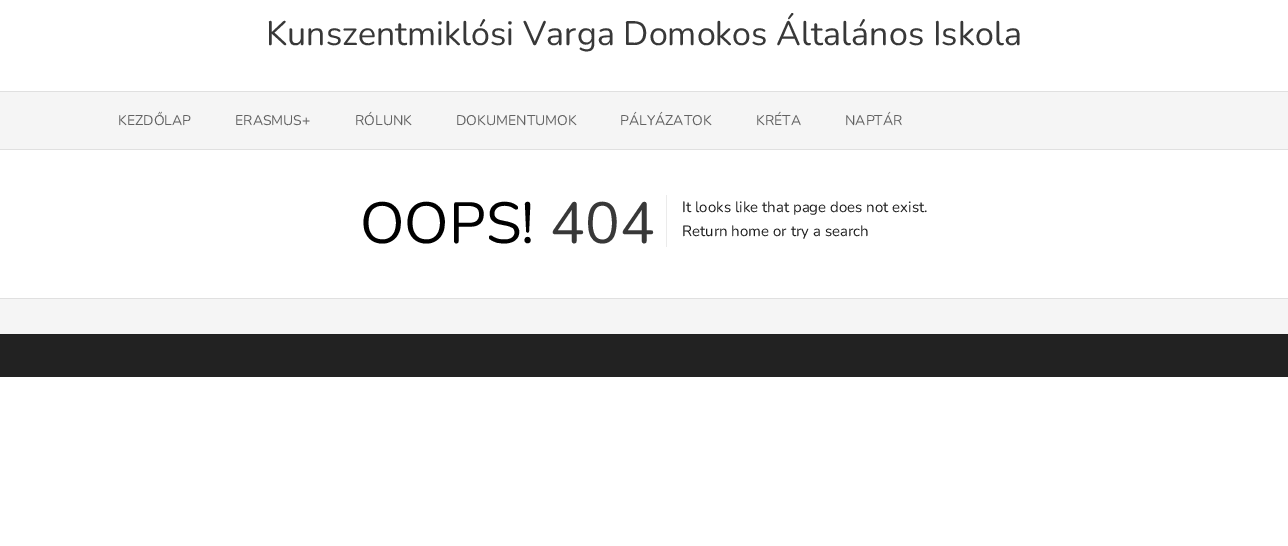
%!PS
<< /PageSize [1288 546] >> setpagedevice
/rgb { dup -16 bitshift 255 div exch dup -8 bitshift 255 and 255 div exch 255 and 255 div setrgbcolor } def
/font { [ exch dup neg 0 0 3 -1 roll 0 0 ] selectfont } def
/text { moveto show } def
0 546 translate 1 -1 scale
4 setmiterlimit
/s1 { /Nunito-Regular 34 font 16#383838 rgb } def
/s2 { /Nunito-Regular 14 font 16#626262 rgb } def
/s3 { /Nunito-Regular 58 font 16#000000 rgb } def
/s4 { /Nunito-Regular 58 font 16#383838 rgb } def
/s5 { /Nunito-Regular 15 font 16#1C1C1C rgb } def
16#FFFFFF rgb
0 0 1288 546 rectfill
16#E0E0E0 rgb
0 149 1288 1 rectfill
s1
(Kunszentmiklósi Varga Domokos Általános Iskola) 266 45 text
16#F5F5F5 rgb
0 92 1288 57 rectfill
16#E0E0E0 rgb
0 91 1288 1 rectfill
s2
(KEZDŐLAP) 118 125 text
(ERASMUS+) 235 125 text
(RÓLUNK) 355 125 text
(DOKUMENTUMOK) 456 125 text
(PÁLYÁZATOK) 620 125 text
(KRÉTA) 756 125 text
(NAPTÁR) 845 125 text
s3
(OOPS!) 360 243 text
s4
(404) 550 243 text
16#EBEBEB rgb
666 195 1 52 rectfill
s5
(It looks like that page does not exist.) 682 212 text
(Return home or try a search) 682 236 text
16#F5F5F5 rgb
0 299 1288 35 rectfill
16#E0E0E0 rgb
0 298 1288 1 rectfill
16#222222 rgb
0 335 1288 42 rectfill
16#1F1F1F rgb
0 334 1288 1 rectfill
showpage
